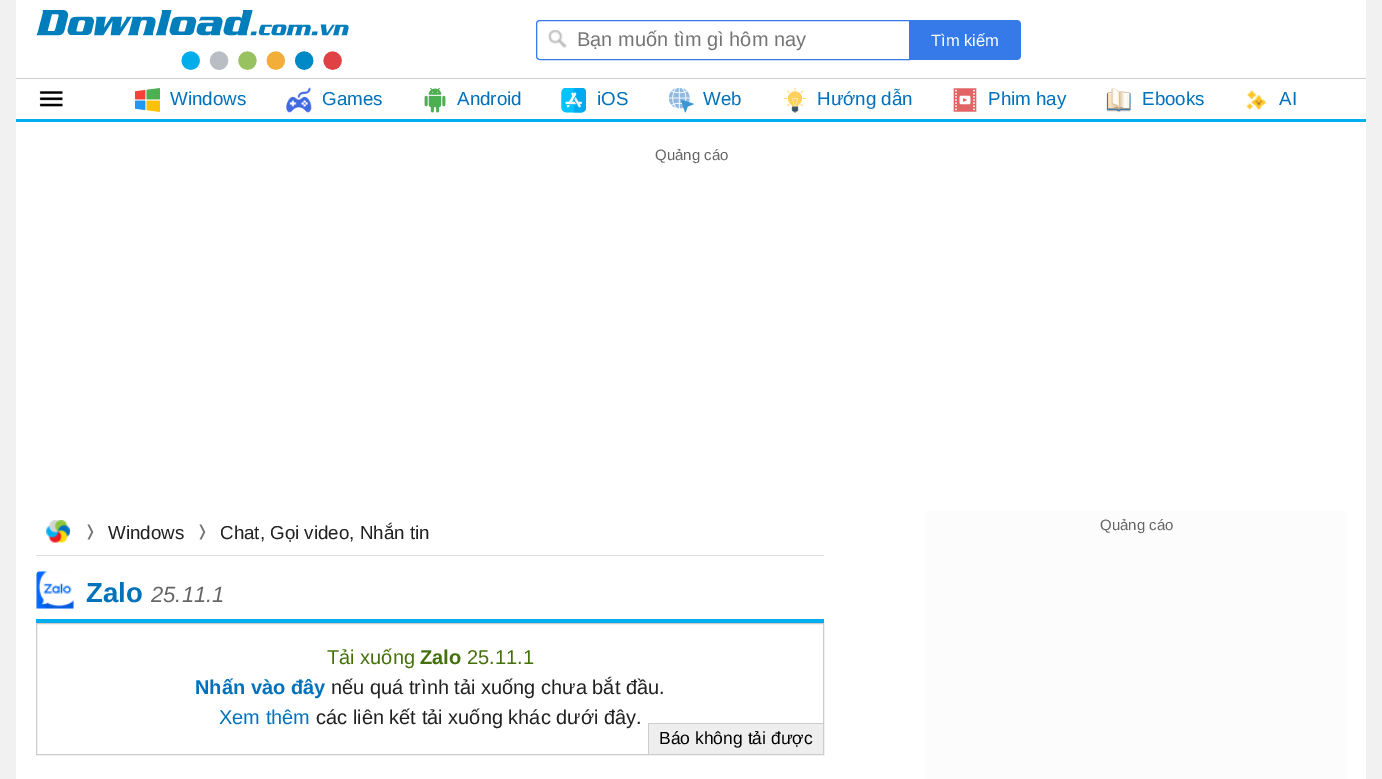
%!PS
<< /PageSize [1382 779] >> setpagedevice
/rgb { dup -16 bitshift 255 div exch dup -8 bitshift 255 and 255 div exch 255 and 255 div setrgbcolor } def
/font { [ exch dup neg 0 0 3 -1 roll 0 0 ] selectfont } def
/text { moveto show } def
/picture { 5 dict begin { /h /w /y /x /name } { exch def } forall
  gsave x y translate w h scale
  w h 8 [w 0 0 h 0 0] name (r) file false 3 colorimage grestore end } def
0 779 translate 1 -1 scale
4 setmiterlimit
/s1 { /LiberationSans-Regular 20 font 16#757575 rgb } def
/s2 { /LiberationSans-Regular 16.5 font 16#FFFFFF rgb } def
/s3 { /LiberationSans-Regular 18.75 font 16#0072BC rgb } def
/s4 { /LiberationSans-Regular 15 font 16#666666 rgb } def
/s5 { /DejaVuSans-Regular 15 font 16#757575 rgb } def
/s6 { /LiberationSans-Regular 18.75 font 16#212121 rgb } def
/s7 { /LiberationSans-Bold 27.5 font 16#0072BC rgb } def
/s8 { /LiberationSans-Italic 22 font 16#666666 rgb } def
/s9 { /LiberationSans-Regular 20 font 16#45710A rgb } def
/s10 { /LiberationSans-Bold 20 font 16#45710A rgb } def
/s11 { /LiberationSans-Bold 20 font 16#0072BC rgb } def
/s12 { /LiberationSans-Regular 20 font 16#212121 rgb } def
/s13 { /LiberationSans-Regular 20 font 16#0072BC rgb } def
/s14 { /LiberationSans-Regular 17.5 font 16#000000 rgb } def
16#F1F1F1 rgb
0 0 1382 779 rectfill
16#FFFFFF rgb
16 0 1350 779 rectfill
(pic1.raw) 36 10 313 60 picture
(pic2.raw) 548 30 19 18 picture
16#357AE8 rgb
540 20.5 moveto 909.5 20.5 lineto 909.5 59.5 lineto 540 59.5 lineto 538 59.5 536.5 58 536.5 56 curveto 536.5 24 lineto 536.5 22 538 20.5 540 20.5 curveto closepath stroke
s1
(Bạn muốn tìm gì hôm nay) 577 46 text
16#357AE8 rgb
909 20 moveto 1017 20 lineto 1019 20 1021 22 1021 24 curveto 1021 56 lineto 1021 58 1019 60 1017 60 curveto 909 60 lineto closepath fill
s2
(Tìm kiếm) 931 46 text
16#CCCCCC rgb
16 78 1350 1 rectfill
16#02AEEF rgb
16 119 1350 3 rectfill
(pic3.raw) 39 91 24 16 picture
(pic4.raw) 135 88 25 24 picture
s3
(Windows) 170 105 text
(pic5.raw) 286 87 26 26 picture
(Games) 322 105 text
(pic6.raw) 424 88 22 25 picture
(Android) 457 105 text
(pic7.raw) 561 88 25 25 picture
(iOS) 597 105 text
(pic8.raw) 669 88 25 25 picture
(Web) 703 105 text
(pic9.raw) 784 88 22 25 picture
(Hướng dẫn) 817 105 text
(pic10.raw) 953 88 24 24 picture
(Phim hay) 988 105 text
(pic11.raw) 1106 88 25 25 picture
(Ebooks) 1142 105 text
(pic12.raw) 1246 90 20 20 picture
(AI) 1279 105 text
s4
(Quảng cáo) 655 160 text
16#DDDDDD rgb
36 555 788 1 rectfill
(pic13.raw) 46 520 24 23 picture
s5
(❭) 84 536 text
s6
(Windows) 108 539 text
s5
(❭) 196 536 text
s6
(Chat, Gọi video, Nhắn tin) 220 539 text
16#02AEEF rgb
36 619 788 4 rectfill
(pic14.raw) 36 571 38 38 picture
s7
(Zalo) 86 602 text
s8
(25.11.1) 151 602 text
16#CCCCCC rgb
36.5 623.5 787 131 rectstroke
s9
(Tải xuống) 327 664 text
s10
(Zalo) 420 664 text
s9
(25.11.1) 467 664 text
s11
(Nhấn vào đây) 195 694 text
s12
(nếu quá trình tải xuống chưa bắt đầu.) 331 694 text
s13
(Xem thêm) 219 724 text
s12
(các liên kết tải xuống khác dưới đây.) 316 724 text
16#EEEEEE rgb
649 724 174 30 rectfill
16#CCCCCC rgb
648 723 175 1 rectfill
648 723 1 31 rectfill
s14
(Báo không tải được) 659 744 text
16#FCFCFC rgb
926 511 420 268 rectfill
s4
(Quảng cáo) 1100 530 text
showpage
